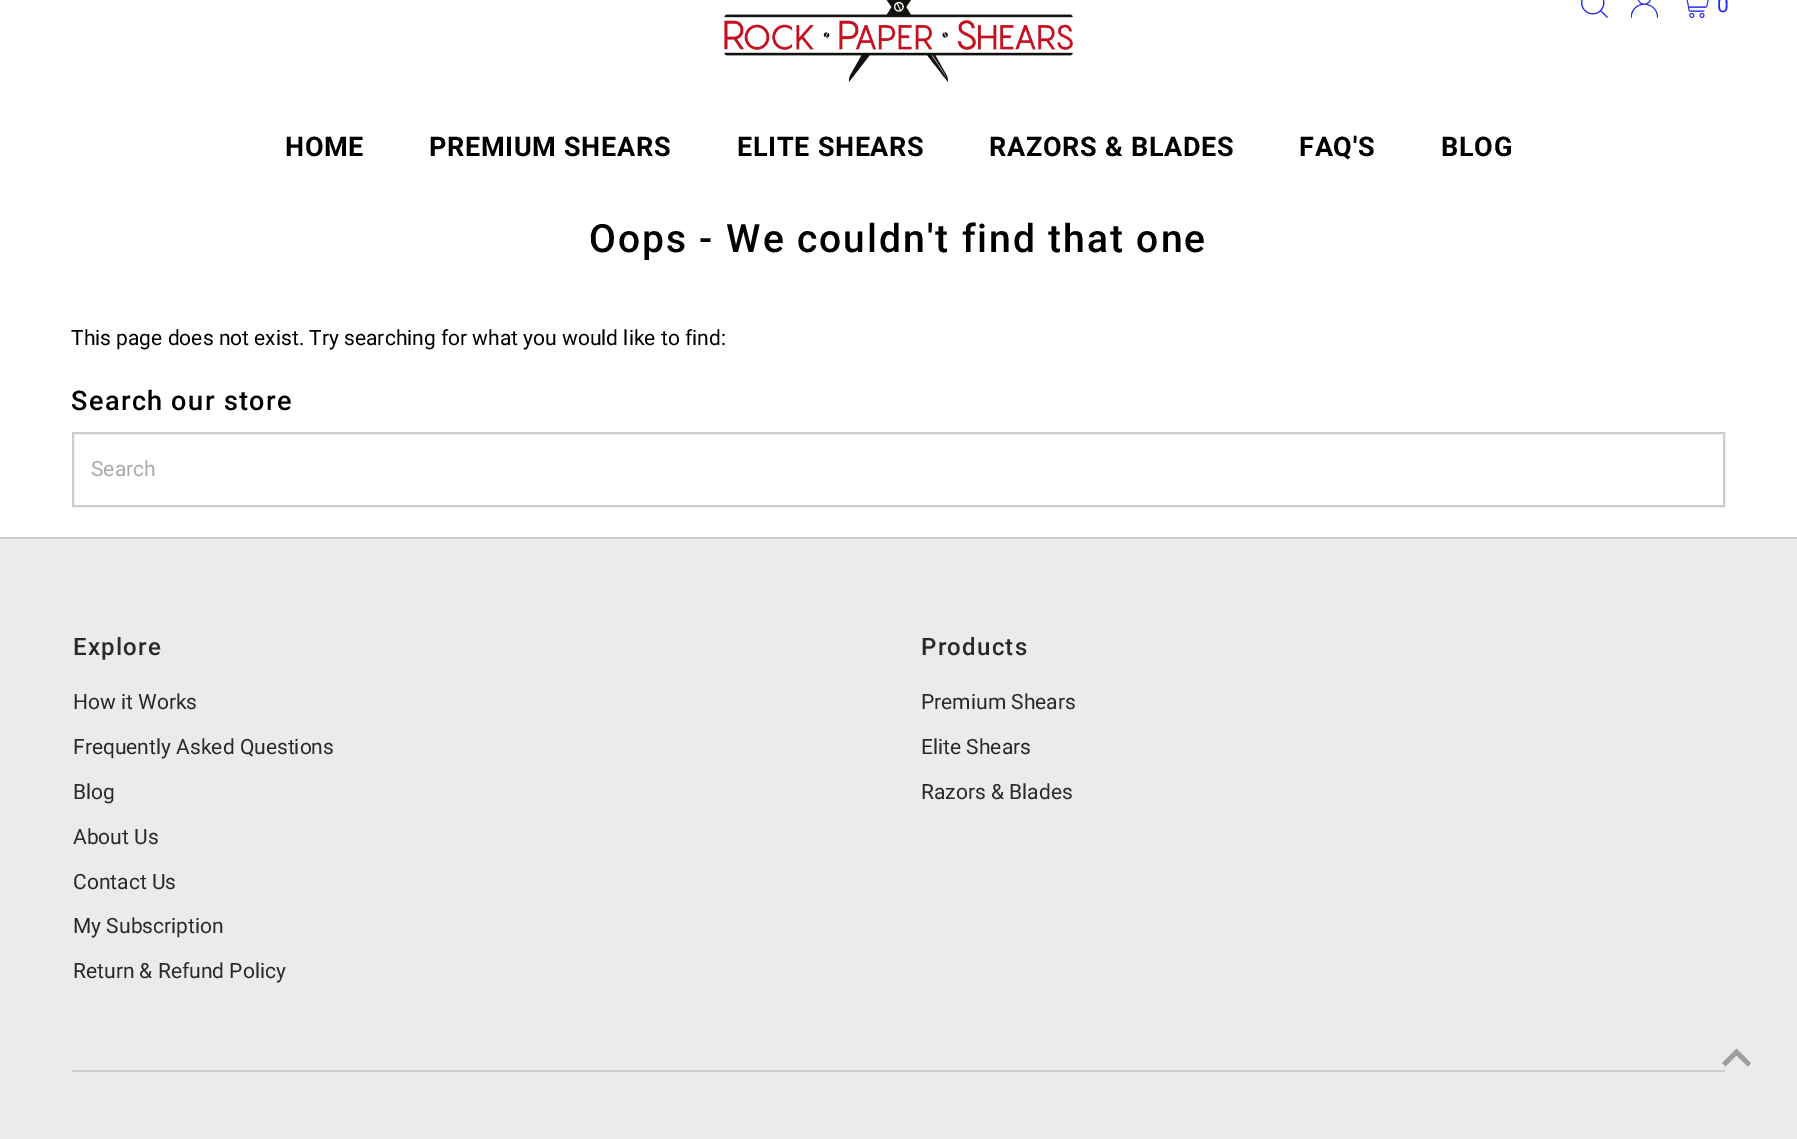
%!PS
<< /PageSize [1797 1139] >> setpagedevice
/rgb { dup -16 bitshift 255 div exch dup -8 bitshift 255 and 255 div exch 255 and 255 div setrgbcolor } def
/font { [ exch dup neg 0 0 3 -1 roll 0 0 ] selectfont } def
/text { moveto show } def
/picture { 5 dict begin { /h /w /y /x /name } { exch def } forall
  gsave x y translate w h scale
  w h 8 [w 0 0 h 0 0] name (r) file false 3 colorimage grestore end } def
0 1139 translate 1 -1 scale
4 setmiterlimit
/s1 { /Roboto-Regular 21 font 16#2128F0 rgb } def
/s2 { /Roboto-Regular 21 font 16#000000 rgb } def
/s3 { /Roboto-Regular 21 font 16#AAAAAA rgb } def
/s4 { /Roboto-Regular 21 font 16#2C2929 rgb } def
16#FFFFFF rgb
0 0 1797 1139 rectfill
(pic1.raw) 724 0 349 82 picture
(pic2.raw) 1581 0 27 18 picture
(pic3.raw) 1631 0 27 18 picture
(pic4.raw) 1686 0 23 18 picture
s1
(0) 1717 12 text
/Roboto-Bold 27 font
16#000000 rgb
285 156 moveto 0.7 0 (HOME) ashow
429 156 moveto 0.7 0 (PREMIUM SHEARS) ashow
737 156 moveto 0.7 0 (ELITE SHEARS) ashow
989 156 moveto 0.7 0 (RAZORS & BLADES) ashow
1299 156 moveto 0.7 0 (FAQ'S) ashow
1441 156 moveto 0.7 0 (BLOG) ashow
/Roboto-Medium 39 font
589 252 moveto 1.95 0 (Oops - We couldn't find that one) ashow
s2
(This page does not exist. Try searching for what you would like to find:) 71 345 text
/Roboto-Medium 27 font
71 410 moveto 1.4 0 (Search our store) ashow
16#CCCCCC rgb
2 setlinewidth
73 433 1651 73 rectstroke
s3
(Search) 91 476 text
16#EBEBEB rgb
0 539 1797 600 rectfill
16#CCCCCC rgb
0 537 1797 2 rectfill
/Roboto-Medium 24 font
16#2C2929 rgb
73 655 moveto 1.25 0 (Explore) ashow
s4
(How it Works) 73 709 text
(Frequently Asked Questions) 73 754 text
(Blog) 73 799 text
(About Us) 73 844 text
(Contact Us) 73 889 text
(My Subscription) 73 933 text
(Return & Refund Policy) 73 978 text
/Roboto-Medium 24 font
921 655 moveto 1.25 0 (Products) ashow
s4
(Premium Shears) 921 709 text
(Elite Shears) 921 754 text
(Razors & Blades) 921 799 text
16#CCCCCC rgb
72 1070 1653 2 rectfill
16#9F9D9D rgb
1736.5 1048.5 moveto 1722 1063 lineto 1725.5 1066.5 lineto 1736.5 1055.5 lineto 1748 1066.5 lineto 1751 1063 lineto closepath fill
showpage
